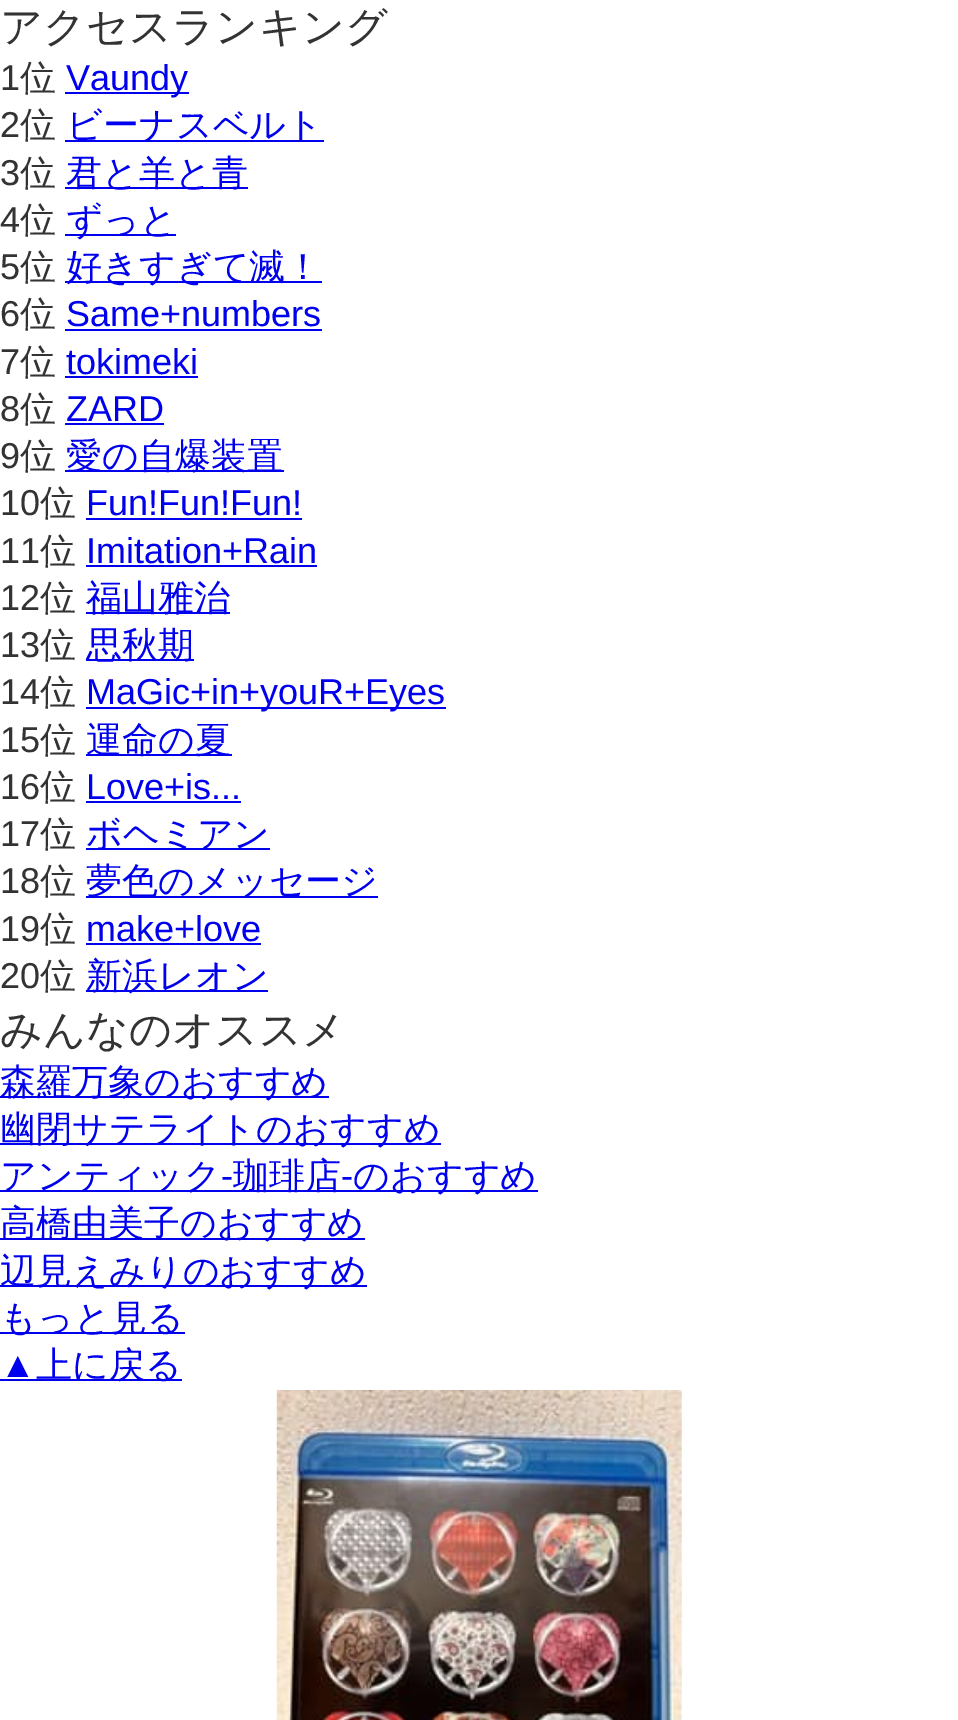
%!PS
<< /PageSize [958 1720] >> setpagedevice
/rgb { dup -16 bitshift 255 div exch dup -8 bitshift 255 and 255 div exch 255 and 255 div setrgbcolor } def
/font { [ exch dup neg 0 0 3 -1 roll 0 0 ] selectfont } def
/text { moveto show } def
/picture { 5 dict begin { /h /w /y /x /name } { exch def } forall
  gsave x y translate w h scale
  w h 8 [w 0 0 h 0 0] name (r) file false 3 colorimage grestore end } def
0 1720 translate 1 -1 scale
4 setmiterlimit
/s1 { /WenQuanYiZenHei-Medium 42.1 font 16#333333 rgb } def
/s2 { /LiberationSans-Regular 36 font 16#333333 rgb } def
/s3 { /WenQuanYiZenHei-Medium 36 font 16#333333 rgb } def
/s4 { /LiberationSans-Regular 36 font 16#0000EE rgb } def
/s5 { /WenQuanYiZenHei-Medium 36 font 16#0000EE rgb } def
16#FFFFFF rgb
0 0 958 1720 rectfill
s1
(アクセスランキング) 0 41 text
s2
(1) 0 90 text
s3
(位) 20 90 text
16#0000EE rgb
65 92 124 2 rectfill
s4
(Vaundy) 66 90 text
s2
(2) 0 137 text
s3
(位) 20 137 text
16#0000EE rgb
65 140 259 2 rectfill
(ビーナスベルト) 66 137 text
s2
(3) 0 185 text
s3
(位) 20 185 text
16#0000EE rgb
65 187 183 2 rectfill
(君と羊と青) 66 185 text
s2
(4) 0 232 text
s3
(位) 20 232 text
16#0000EE rgb
65 234 111 2 rectfill
(ずっと) 66 232 text
s2
(5) 0 279 text
s3
(位) 20 279 text
16#0000EE rgb
65 281 257 2 rectfill
(好きすぎて滅！) 66 279 text
s2
(6) 0 326 text
s3
(位) 20 326 text
s4
(Same+numbers) 66 326 text
65 329 257 2 rectfill
s2
(7) 0 374 text
s3
(位) 20 374 text
s4
(tokimeki) 66 374 text
65 376 133 2 rectfill
s2
(8) 0 421 text
s3
(位) 20 421 text
s4
(ZARD) 66 421 text
65 423 99 2 rectfill
s2
(9) 0 468 text
s3
(位) 20 468 text
16#0000EE rgb
65 470 219 2 rectfill
(愛の自爆装置) 66 468 text
s2
(10) 0 515 text
s3
(位) 40 515 text
s4
(Fun!Fun!Fun!) 86 515 text
86 518 216 2 rectfill
s2
(11) 0 563 text
s3
(位) 40 563 text
s4
(Imitation+Rain) 86 563 text
86 565 231 2 rectfill
s2
(12) 0 610 text
s3
(位) 40 610 text
16#0000EE rgb
86 612 144 2 rectfill
(福山雅治) 86 610 text
s2
(13) 0 657 text
s3
(位) 40 657 text
16#0000EE rgb
86 659 108 2 rectfill
(思秋期) 86 657 text
s2
(14) 0 704 text
s3
(位) 40 704 text
16#0000EE rgb
86 707 360 2 rectfill
s4
(MaGic+in+youR+Eyes) 86 704 text
s2
(15) 0 752 text
s3
(位) 40 752 text
16#0000EE rgb
86 754 146 2 rectfill
(運命の夏) 86 752 text
s2
(16) 0 799 text
s3
(位) 40 799 text
s4
(Love+is...) 86 799 text
86 801 155 2 rectfill
s2
(17) 0 846 text
s3
(位) 40 846 text
16#0000EE rgb
86 848 184 2 rectfill
(ボヘミアン) 86 846 text
s2
(18) 0 893 text
s3
(位) 40 893 text
16#0000EE rgb
86 896 292 2 rectfill
(夢色のメッセージ) 86 893 text
s2
(19) 0 941 text
s3
(位) 40 941 text
s4
(make+love) 86 941 text
86 943 175 2 rectfill
s2
(20) 0 988 text
s3
(位) 40 988 text
16#0000EE rgb
86 990 182 2 rectfill
(新浜レオン) 86 988 text
s1
(みんなのオススメ) 0 1044 text
16#0000EE rgb
0 1096 329 2 rectfill
s5
(森羅万象のおすすめ) 0 1094 text
0 1143 441 2 rectfill
(幽閉サテライトのおすすめ) 0 1141 text
0 1190 538 2 rectfill
(アンティック) 0 1188 text
s4
(-) 221 1188 text
s5
(珈琲店) 233 1188 text
s4
(-) 341 1188 text
s5
(のおすすめ) 353 1188 text
0 1238 365 2 rectfill
(高橋由美子のおすすめ) 0 1235 text
0 1285 367 2 rectfill
(辺見えみりのおすすめ) 0 1283 text
0 1332 185 2 rectfill
(もっと見る) 0 1330 text
s4
(▲) 0 1377 text
0 1379 182 2 rectfill
s5
(上に戻る) 36 1377 text
(pic1.raw) 276 1390 406 330 picture
showpage
